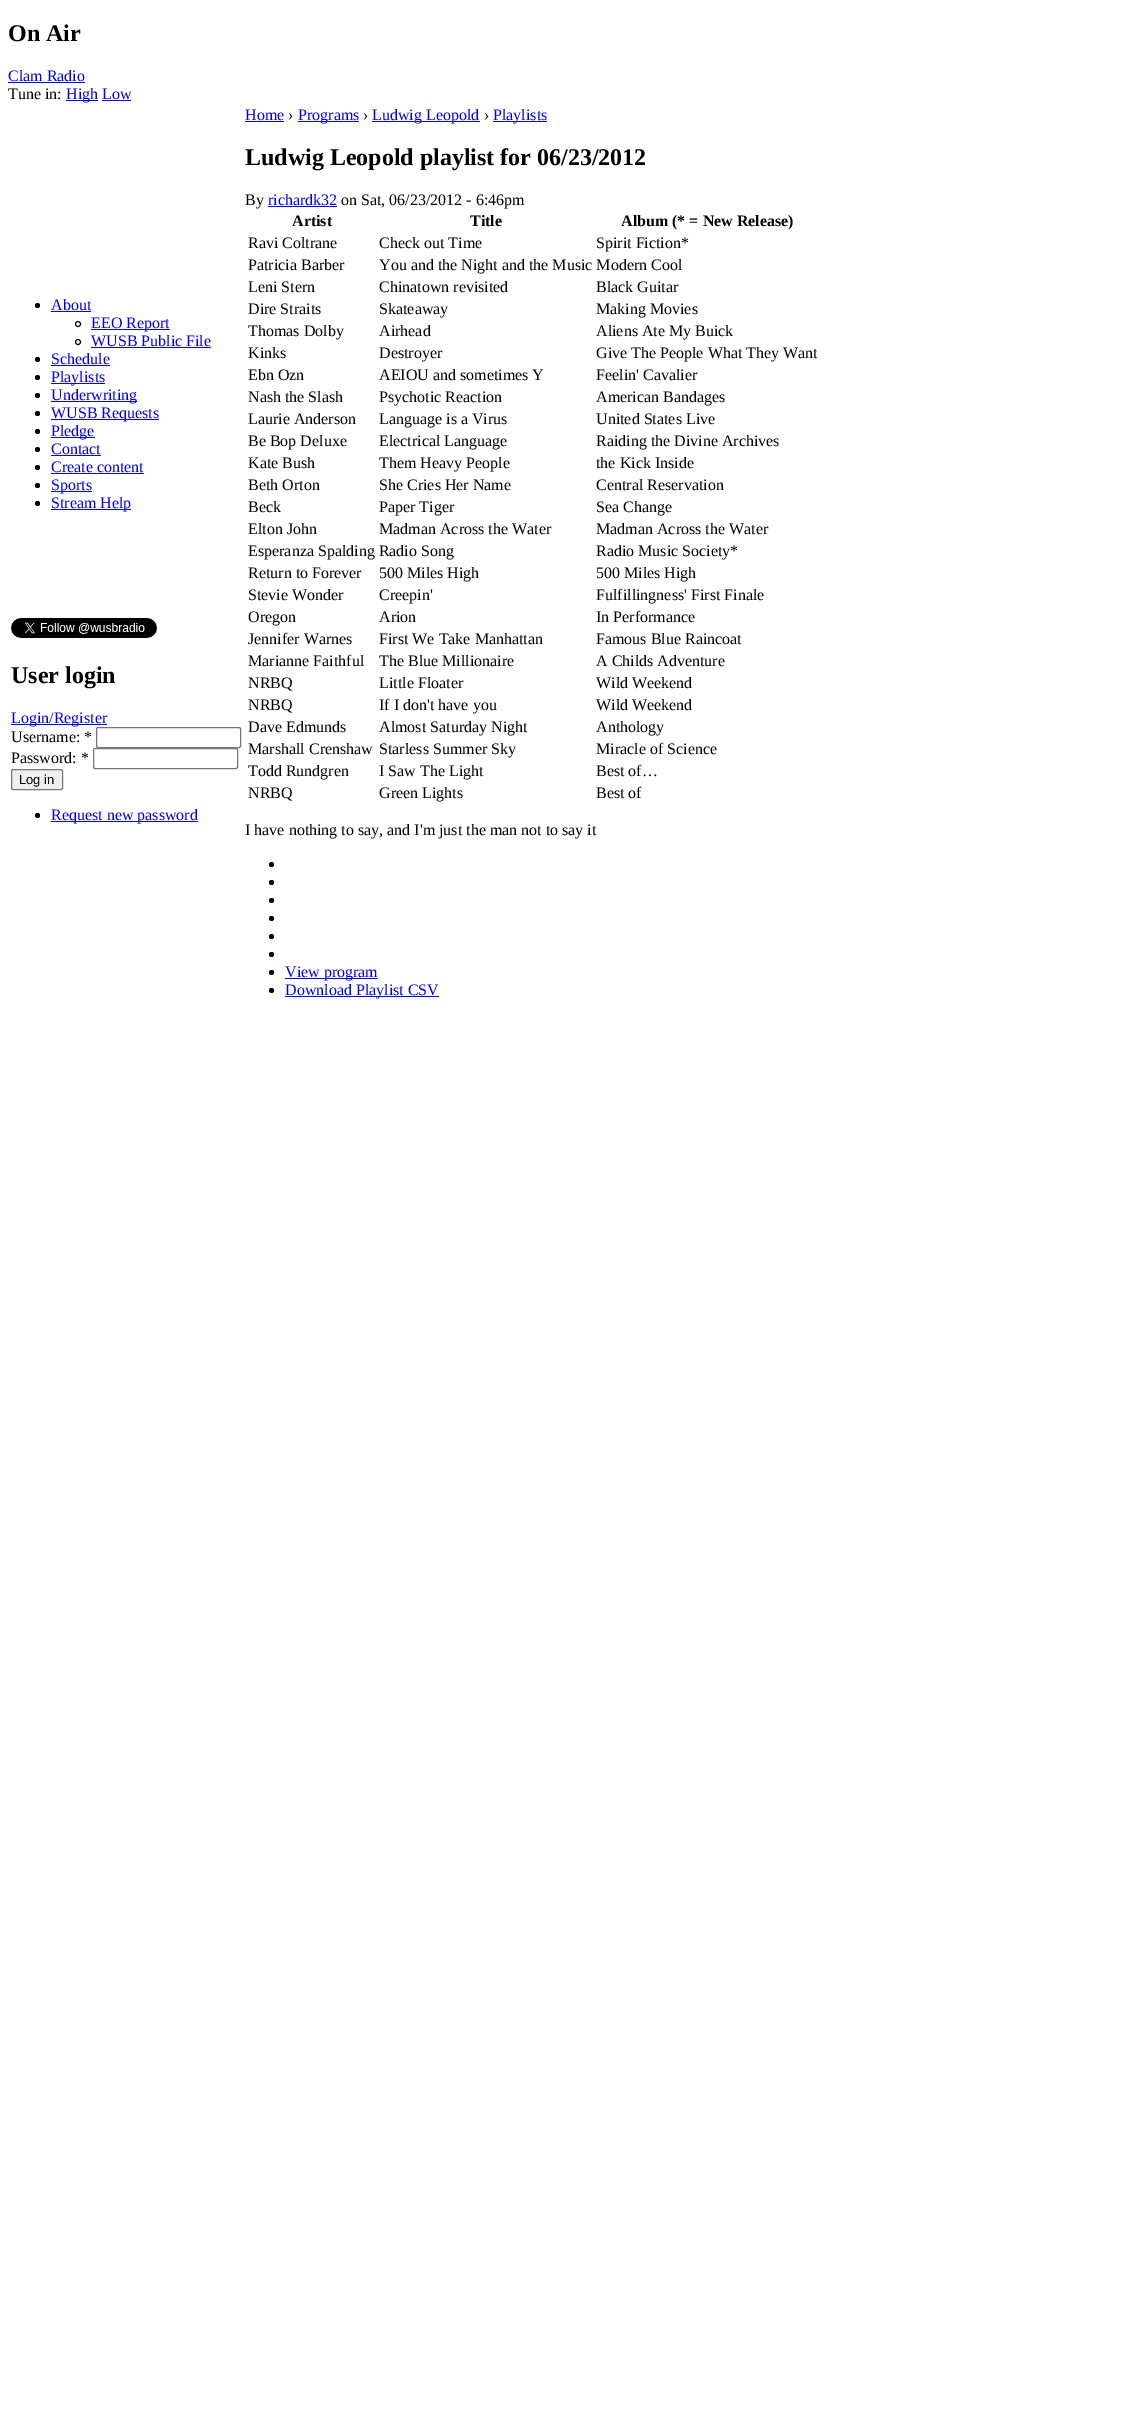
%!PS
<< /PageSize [1145 2417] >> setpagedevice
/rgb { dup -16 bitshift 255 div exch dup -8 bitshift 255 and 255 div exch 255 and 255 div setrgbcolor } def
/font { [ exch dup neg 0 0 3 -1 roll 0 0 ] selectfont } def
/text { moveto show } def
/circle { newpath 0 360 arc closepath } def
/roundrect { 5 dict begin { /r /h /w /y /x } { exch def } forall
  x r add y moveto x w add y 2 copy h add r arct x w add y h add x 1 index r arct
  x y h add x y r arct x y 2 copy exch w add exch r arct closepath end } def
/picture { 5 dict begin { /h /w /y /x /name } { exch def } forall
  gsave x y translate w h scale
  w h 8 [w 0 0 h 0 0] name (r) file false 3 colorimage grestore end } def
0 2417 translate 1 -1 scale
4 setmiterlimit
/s1 { /LiberationSerif-Bold 24 font 16#000000 rgb } def
/s2 { /LiberationSerif-Regular 16 font 16#0000EE rgb } def
/s3 { /LiberationSerif-Regular 16 font 16#000000 rgb } def
/s4 { /LiberationSans-Regular 13 font 16#000000 rgb } def
/s5 { /LiberationSerif-Bold 16 font 16#000000 rgb } def
16#FFFFFF rgb
0 0 1145 2417 rectfill
s1
(On Air) 8 41 text
s2
(Clam Radio) 8 81 text
8 82 77 1 rectfill
s3
(Tune in:) 8 99 text
16#0000EE rgb
66 100 32 1 rectfill
(High Low) 66 99 text
102 100 29 1 rectfill
16#000000 rgb
37.5 305.5 2.5 circle fill
s2
(About) 51 310 text
51 311 40 1 rectfill
16#000000 rgb
78 324 2.5 circle stroke
16#0000EE rgb
91 329 79 1 rectfill
(EEO Report) 91 328 text
16#000000 rgb
78 342 2.5 circle stroke
s2
(WUSB Public File) 91 346 text
91 347 120 1 rectfill
16#000000 rgb
37.5 359.5 2.5 circle fill
s2
(Schedule) 51 364 text
51 365 59 1 rectfill
16#000000 rgb
37.5 377.5 2.5 circle fill
16#0000EE rgb
51 383 54 1 rectfill
(Playlists) 51 382 text
16#000000 rgb
37.5 395.5 2.5 circle fill
16#0000EE rgb
51 401 86 1 rectfill
(Underwriting) 51 400 text
16#000000 rgb
37.5 413.5 2.5 circle fill
16#0000EE rgb
51 419 108 1 rectfill
(WUSB Requests) 51 418 text
16#000000 rgb
37.5 431.5 2.5 circle fill
16#0000EE rgb
51 437 44 1 rectfill
(Pledge) 51 436 text
16#000000 rgb
37.5 449.5 2.5 circle fill
s2
(Contact) 51 454 text
51 455 50 1 rectfill
16#000000 rgb
37.5 467.5 2.5 circle fill
s2
(Create content) 51 472 text
51 473 93 1 rectfill
16#000000 rgb
37.5 485.5 2.5 circle fill
16#0000EE rgb
51 491 41 1 rectfill
(Sports) 51 490 text
16#000000 rgb
37.5 503.5 2.5 circle fill
16#0000EE rgb
51 509 80 1 rectfill
(Stream Help) 51 508 text
(pic1.raw) 11 618 146 20 picture
s1
(User login) 11 683 text
16#0000EE rgb
11 724 96 1 rectfill
s2
(Login/Register) 11 723 text
s3
(Username: *) 11 742 text
16#767676 rgb
96.5 727.5 144 20 1.5 roundrect stroke
s3
(Password: *) 11 763 text
16#767676 rgb
93.5 748.5 144 20 1.5 roundrect stroke
16#EFEFEF rgb
11.5 769.5 51 20 1.5 roundrect gsave fill grestore
16#767676 rgb
stroke
s4
(Log in) 19 784 text
37.5 815.5 2.5 circle fill
16#0000EE rgb
51 821 147 1 rectfill
s2
(Request new password) 51 820 text
(Home) 245 120 text
245 121 39 1 rectfill
s3
(›) 288 120 text
16#0000EE rgb
298 121 61 1 rectfill
(Programs) 298 120 text
s3
(›) 363 120 text
16#0000EE rgb
372 121 108 1 rectfill
(Ludwig Leopold) 372 120 text
s3
(›) 484 120 text
16#0000EE rgb
493 121 54 1 rectfill
(Playlists) 493 120 text
s1
(Ludwig Leopold playlist for 06/23/2012) 245 165 text
s3
(By) 245 205 text
16#0000EE rgb
268 206 69 1 rectfill
(richardk32) 268 205 text
s3
(on Sat, 06/23/2012 - 6:46pm) 341 205 text
s5
(Artist) 292 226 text
(Title) 470 226 text
(Album \(* = New Release\)) 621 226 text
s3
(Ravi Coltrane) 248 248 text
(Check out Time) 379 248 text
(Spirit Fiction*) 596 248 text
(Patricia Barber) 248 270 text
(You and the Night and the Music Modern Cool) 379 270 text
(Leni Stern) 248 292 text
(Chinatown revisited) 379 292 text
(Black Guitar) 596 292 text
(Dire Straits) 248 314 text
(Skateaway) 379 314 text
(Making Movies) 596 314 text
(Thomas Dolby) 248 336 text
(Airhead) 379 336 text
(Aliens Ate My Buick) 596 336 text
(Kinks) 248 358 text
(Destroyer) 379 358 text
(Give The People What They Want) 596 358 text
(Ebn Ozn) 248 380 text
(AEIOU and sometimes Y) 379 380 text
(Feelin' Cavalier) 596 380 text
(Nash the Slash) 248 402 text
(Psychotic Reaction) 379 402 text
(American Bandages) 596 402 text
(Laurie Anderson) 248 424 text
(Language is a Virus) 379 424 text
(United States Live) 596 424 text
(Be Bop Deluxe) 248 446 text
(Electrical Language) 379 446 text
(Raiding the Divine Archives) 596 446 text
(Kate Bush) 248 468 text
(Them Heavy People) 379 468 text
(the Kick Inside) 596 468 text
(Beth Orton) 248 490 text
(She Cries Her Name) 379 490 text
(Central Reservation) 596 490 text
(Beck) 248 512 text
(Paper Tiger) 379 512 text
(Sea Change) 596 512 text
(Elton John) 248 534 text
(Madman Across the Water) 379 534 text
(Madman Across the Water) 596 534 text
(Esperanza Spalding Radio Song) 248 556 text
(Radio Music Society*) 596 556 text
(Return to Forever) 248 578 text
(500 Miles High) 379 578 text
(500 Miles High) 596 578 text
(Stevie Wonder) 248 600 text
(Creepin') 379 600 text
(Fulfillingness' First Finale) 596 600 text
(Oregon) 248 622 text
(Arion) 379 622 text
(In Performance) 596 622 text
(Jennifer Warnes) 248 644 text
(First We Take Manhattan) 379 644 text
(Famous Blue Raincoat) 596 644 text
(Marianne Faithful) 248 666 text
(The Blue Millionaire) 379 666 text
(A Childs Adventure) 596 666 text
(NRBQ) 248 688 text
(Little Floater) 379 688 text
(Wild Weekend) 596 688 text
(NRBQ) 248 710 text
(If I don't have you) 379 710 text
(Wild Weekend) 596 710 text
(Dave Edmunds) 248 732 text
(Almost Saturday Night) 379 732 text
(Anthology) 596 732 text
(Marshall Crenshaw) 248 754 text
(Starless Summer Sky) 379 754 text
(Miracle of Science) 596 754 text
(Todd Rundgren) 248 776 text
(I Saw The Light) 379 776 text
(Best of…) 596 776 text
(NRBQ) 248 798 text
(Green Lights) 379 798 text
(Best of) 596 798 text
(I have nothing to say, and I'm just the man not to say it) 245 835 text
271.5 864.5 2.5 circle fill
271.5 882.5 2.5 circle fill
271.5 900.5 2.5 circle fill
271.5 918.5 2.5 circle fill
271.5 936.5 2.5 circle fill
271.5 954.5 2.5 circle fill
271.5 972.5 2.5 circle fill
16#0000EE rgb
285 978 93 1 rectfill
(View program) 285 977 text
16#000000 rgb
271.5 990.5 2.5 circle fill
16#0000EE rgb
285 996 154 1 rectfill
(Download Playlist CSV) 285 995 text
showpage
